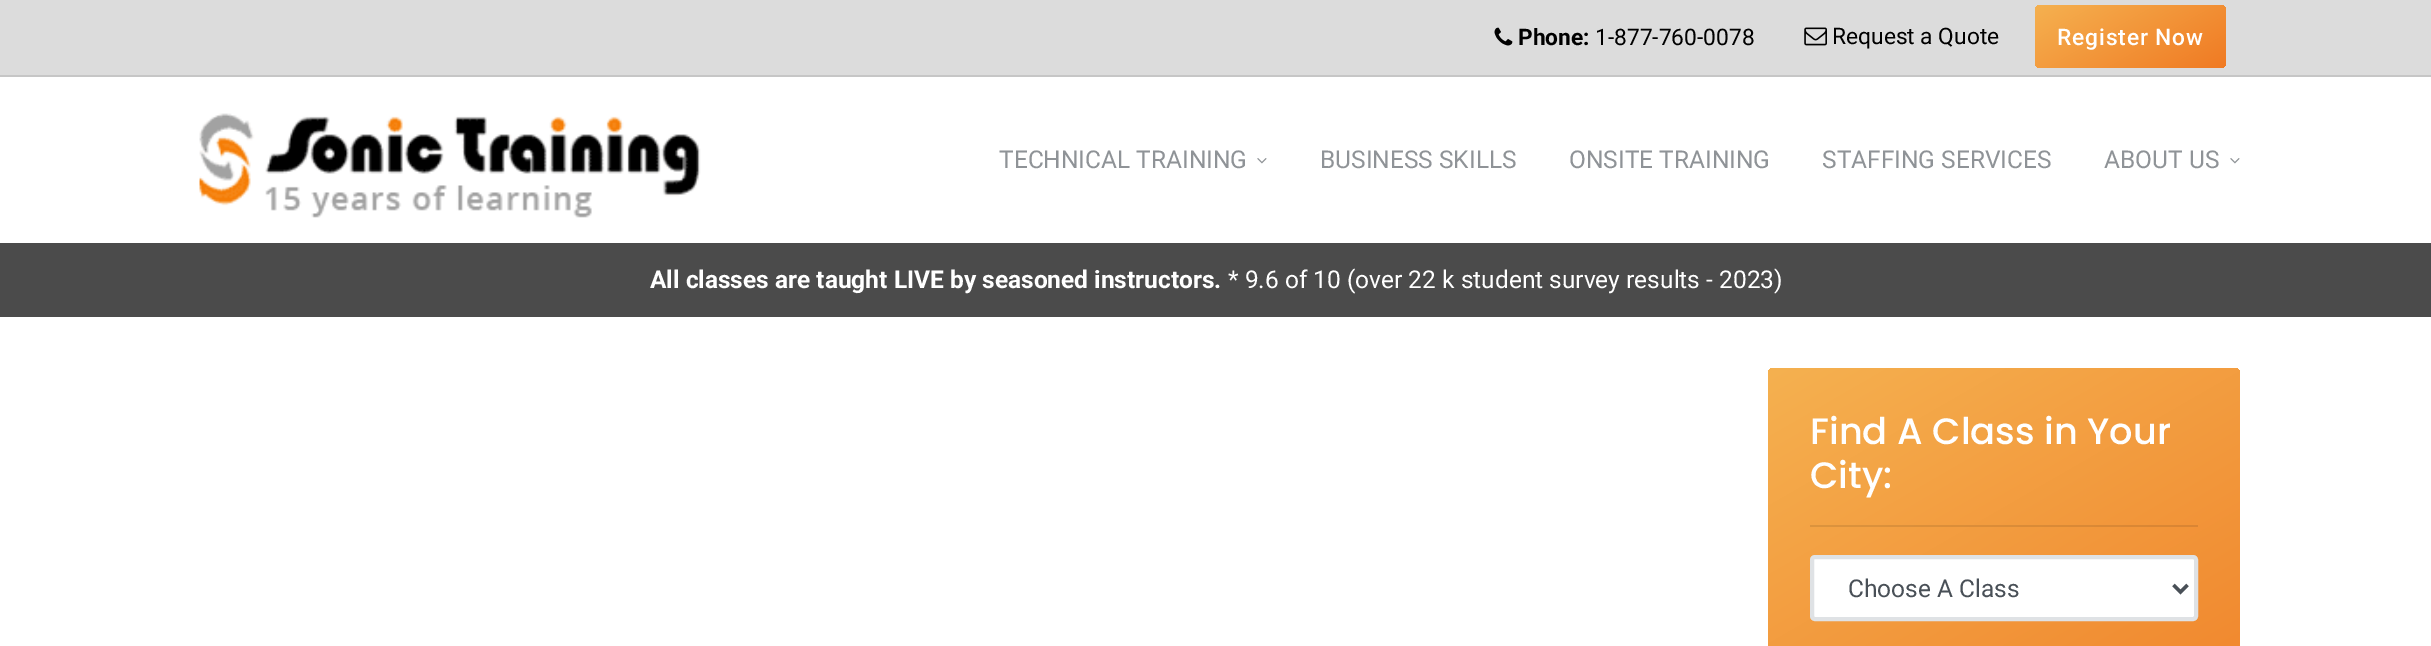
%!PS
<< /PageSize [2431 646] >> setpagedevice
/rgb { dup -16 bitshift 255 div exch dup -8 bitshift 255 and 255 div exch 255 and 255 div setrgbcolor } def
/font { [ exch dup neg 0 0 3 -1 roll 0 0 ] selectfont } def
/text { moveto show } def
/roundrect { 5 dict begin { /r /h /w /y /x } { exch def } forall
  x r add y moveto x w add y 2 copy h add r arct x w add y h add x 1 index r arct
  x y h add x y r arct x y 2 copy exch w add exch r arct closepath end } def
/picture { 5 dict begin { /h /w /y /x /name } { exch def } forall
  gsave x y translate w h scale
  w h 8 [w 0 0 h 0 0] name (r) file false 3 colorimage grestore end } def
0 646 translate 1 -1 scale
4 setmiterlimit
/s1 { /Roboto-Bold 22.75 font 16#000000 rgb } def
/s2 { /Roboto-Regular 22.75 font 16#000000 rgb } def
/s3 { /Roboto-Regular 24.5 font 16#8F9397 rgb } def
/s4 { /Roboto-Bold 24.5 font 16#FFFFFF rgb } def
/s5 { /Roboto-Regular 24.5 font 16#FFFFFF rgb } def
/s6 { /Poppins-Medium 36.75 font 16#FFFFFF rgb } def
/s7 { /Roboto-Regular 24.5 font 16#495057 rgb } def
16#FFFFFF rgb
0 0 2431 646 rectfill
16#DCDCDC rgb
0 0 2431 75 rectfill
16#C6C6C6 rgb
0 75 2431 2 rectfill
(pic1.raw) 1494 27 19 19 picture
s1
(Phone:) 1518 45 text
s2
(1-877-760-0078) 1595 45 text
(pic2.raw) 1804 27 23 19 picture
(Request a Quote) 1832 44 text
gsave 2035 5 191 63 5 roundrect clip newpath
<< /ShadingType 2 /ColorSpace /DeviceRGB /Coords [1902 -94 2054 168] /Extend [true true] /Function << /FunctionType 3 /Domain [0 1] /Functions [<< /FunctionType 2 /Domain [0 1] /C0 [0.941 0.478 0.137] /C1 [0.961 0.694 0.314] /N 1 >> << /FunctionType 2 /Domain [0 1] /C0 [0.961 0.694 0.314] /C1 [0.941 0.478 0.137] /N 1 >>] /Bounds [0.5] /Encode [0 1 0 1] >> >> shfill grestore
/Roboto-Medium 22.75 font
16#FFFFFF rgb
2057 45 moveto 0.9 0 (Register Now) ashow
(pic3.raw) 199 113 502 105 picture
s3
(TECHNICAL TRAINING) 999 168 text
(pic4.raw) 1257 158 10 6 picture
(BUSINESS SKILLS) 1320 168 text
(ONSITE TRAINING) 1569 168 text
(STAFFING SERVICES) 1822 168 text
(ABOUT US) 2104 168 text
(pic4.raw) 2230 158 10 6 picture
16#4B4B4B rgb
0 243 2431 74 rectfill
s4
(All classes are taught LIVE by seasoned instructors.) 650 288 text
s5
(* 9.6 of 10 \(over 22 k student survey results - 2023\)) 1228 288 text
gsave 1768 368 472 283 5 roundrect clip newpath
<< /ShadingType 2 /ColorSpace /DeviceRGB /Coords [1836 328 2171 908] /Extend [true true] /Function << /FunctionType 2 /Domain [0 1] /C0 [0.961 0.694 0.314] /C1 [0.941 0.478 0.137] /N 1 >> >> shfill grestore
gsave 1810 525 moveto 2198 525 lineto 2198 527 lineto 1810 527 lineto closepath clip newpath
<< /ShadingType 2 /ColorSpace /DeviceRGB /Coords [1836 328 2171 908] /Extend [true true] /Function << /FunctionType 2 /Domain [0 1] /C0 [0.867 0.624 0.282] /C1 [0.847 0.431 0.125] /N 1 >> >> shfill grestore
s6
(Find A Class in Your) 1810 444 text
(City:) 1810 488 text
1814 559 380 58 rectfill
16#DFE2E5 rgb
4 setlinewidth
1812 557 384 62 3 roundrect stroke
16#495057 rgb
3.5 setlinewidth
2173.5 585 moveto 2180.5 592 lineto 2187.5 585 lineto stroke
s7
(Choose A Class) 1848 597 text
showpage
